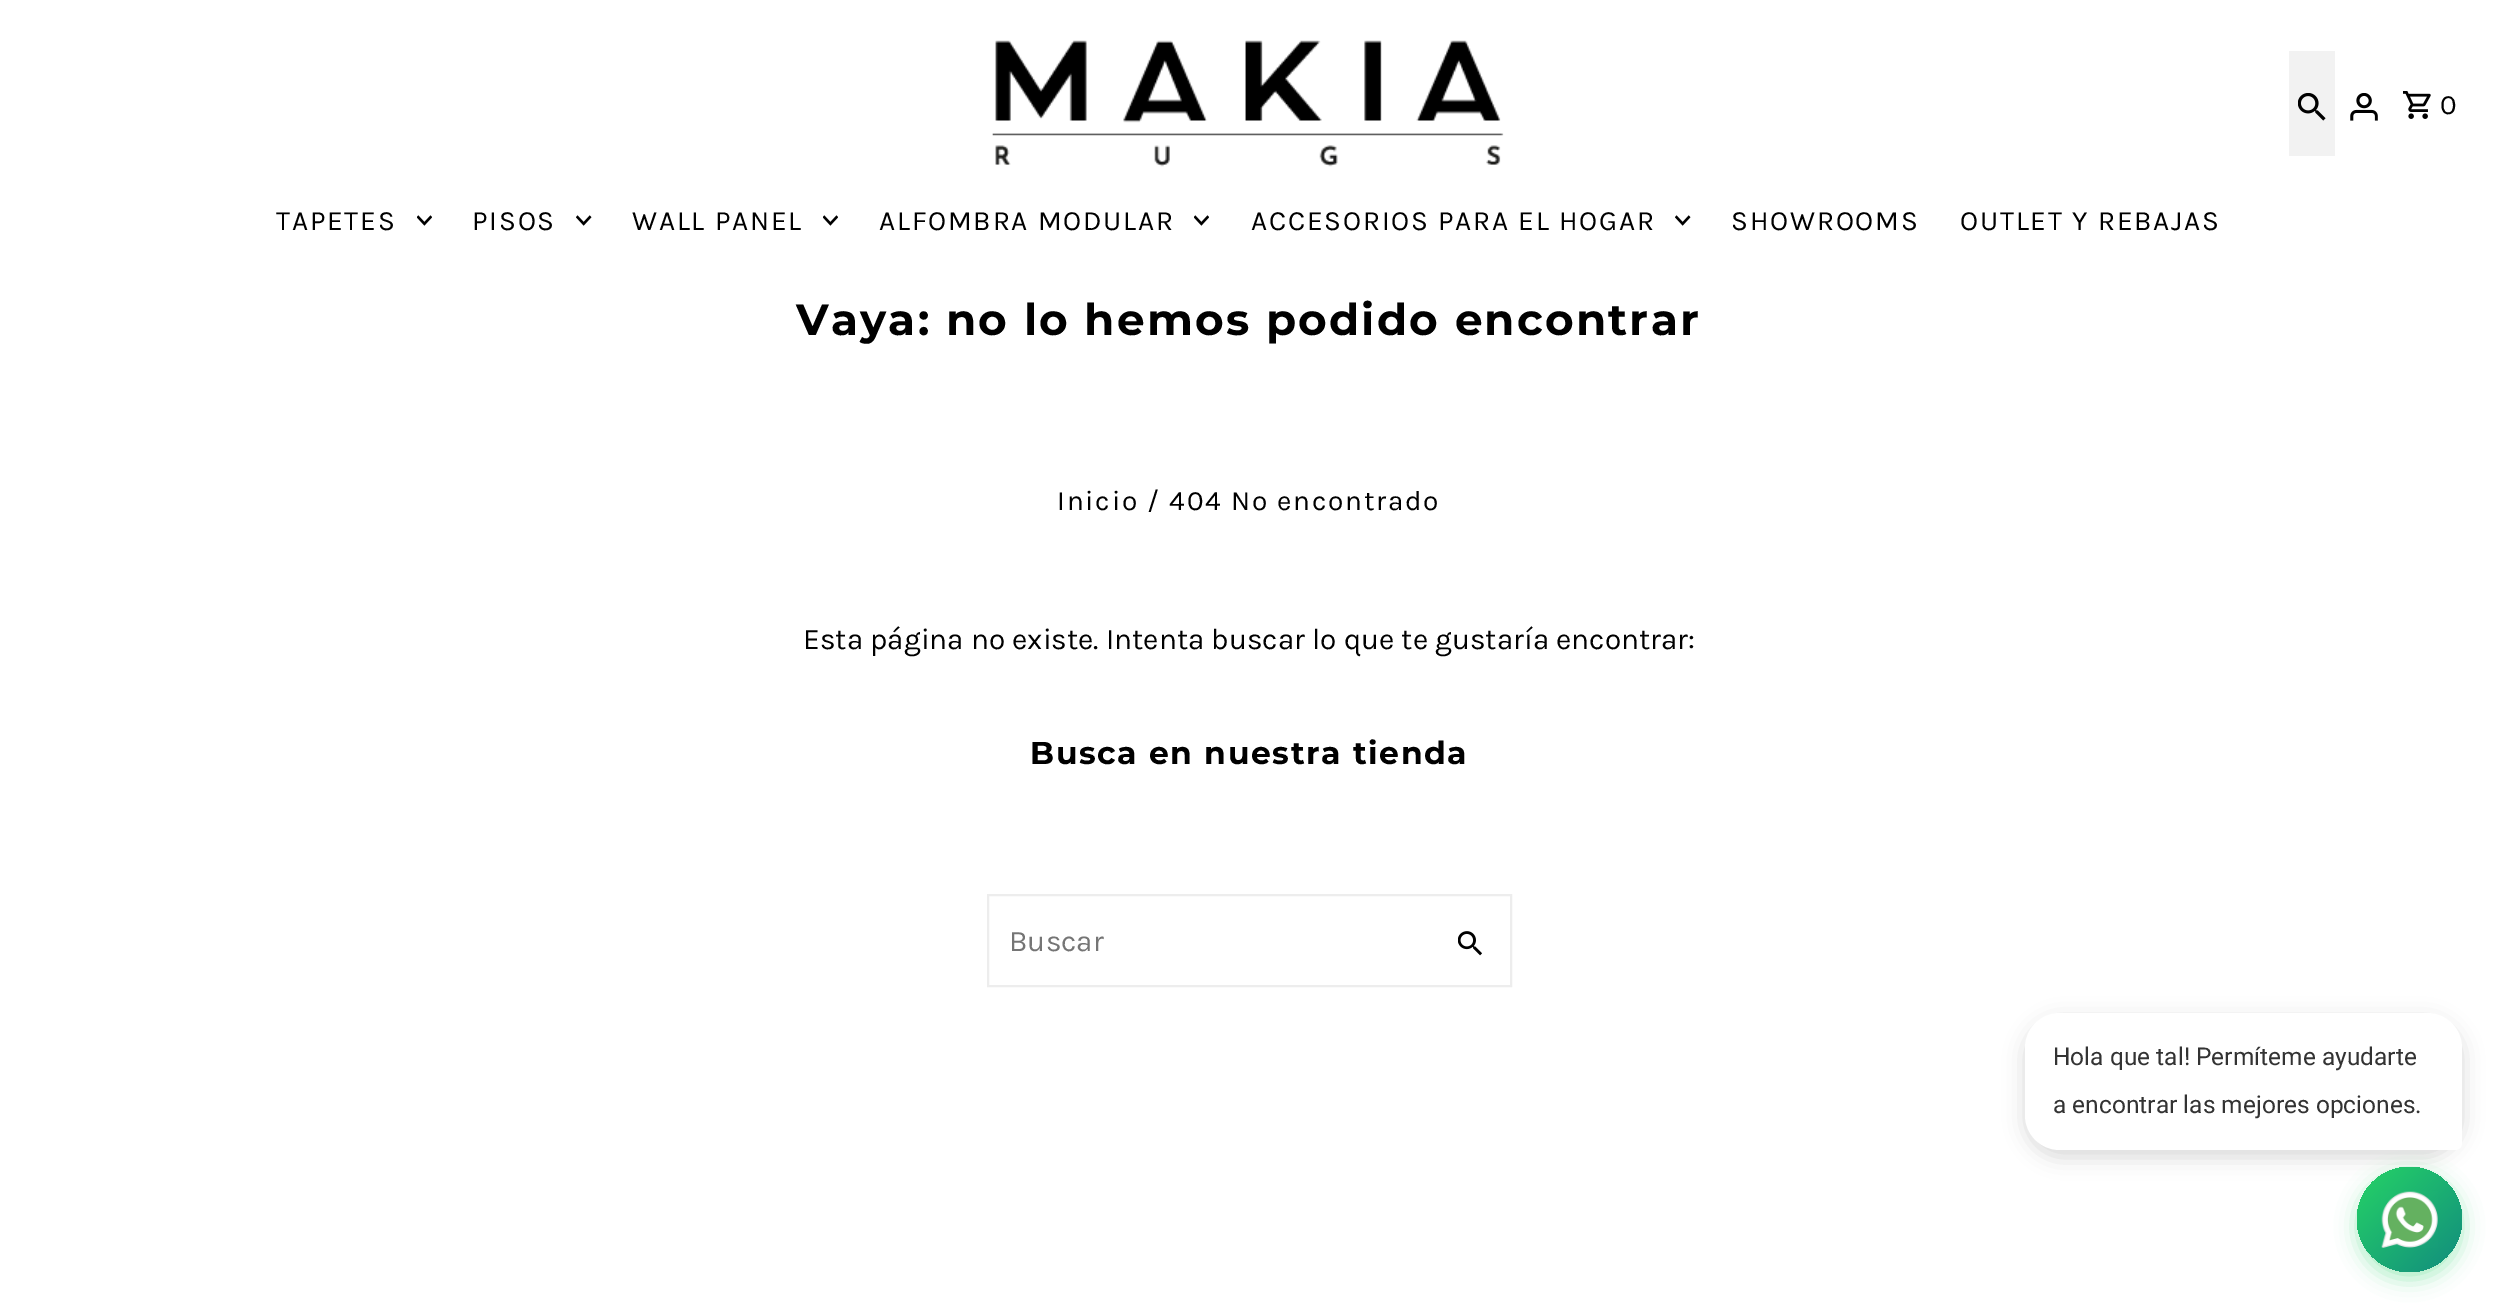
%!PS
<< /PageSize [2496 1307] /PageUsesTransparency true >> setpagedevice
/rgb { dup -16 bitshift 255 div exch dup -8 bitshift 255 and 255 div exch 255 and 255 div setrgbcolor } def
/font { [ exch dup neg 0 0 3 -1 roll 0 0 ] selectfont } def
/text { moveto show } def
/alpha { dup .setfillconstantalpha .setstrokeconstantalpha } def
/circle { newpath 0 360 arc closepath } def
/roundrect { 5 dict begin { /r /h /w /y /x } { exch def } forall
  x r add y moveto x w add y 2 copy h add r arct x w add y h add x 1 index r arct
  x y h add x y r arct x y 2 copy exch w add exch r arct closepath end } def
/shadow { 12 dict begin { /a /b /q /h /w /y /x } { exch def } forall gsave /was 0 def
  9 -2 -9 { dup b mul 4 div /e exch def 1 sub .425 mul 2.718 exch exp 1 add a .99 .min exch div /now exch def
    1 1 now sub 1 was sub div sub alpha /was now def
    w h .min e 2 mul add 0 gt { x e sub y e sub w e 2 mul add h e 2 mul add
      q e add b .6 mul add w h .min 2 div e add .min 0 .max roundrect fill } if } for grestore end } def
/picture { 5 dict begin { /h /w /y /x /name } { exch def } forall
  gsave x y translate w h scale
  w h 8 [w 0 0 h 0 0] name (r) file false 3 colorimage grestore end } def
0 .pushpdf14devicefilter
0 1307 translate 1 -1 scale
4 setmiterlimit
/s1 { /Karla-Regular 29.75 font 16#000000 rgb } def
/s2 { /Karla-Regular 29.75 font 16#757575 rgb } def
/s3 { /Roboto-Regular 24.5 font 16#333333 rgb } def
16#FFFFFF rgb
0 0 2496 1307 rectfill
(pic1.raw) 992 40 512 127 picture
16#F2F2F2 rgb
2289 51 46 105 rectfill
(pic2.raw) 2298 93 28 28 picture
(pic3.raw) 2350 93 28 28 picture
(pic4.raw) 2403 91 28 28 picture
/Karla-Regular 28 font
16#000000 rgb
2440 114 moveto 1.75 0 (0) ashow
276 230 moveto 1.75 0 (TAPETES) ashow
(pic5.raw) 417 215 15 11 picture
472 230 moveto 1.75 0 (PISOS) ashow
(pic6.raw) 576 215 16 11 picture
632 230 moveto 1.75 0 (WALL PANEL) ashow
(pic5.raw) 823 215 15 11 picture
879 230 moveto 1.75 0 (ALFOMBRA MODULAR) ashow
(pic5.raw) 1194 215 15 11 picture
1251 230 moveto 1.75 0 (ACCESORIOS PARA EL HOGAR) ashow
(pic6.raw) 1675 215 16 11 picture
1731 230 moveto 1.75 0 (SHOWROOMS) ashow
1960 230 moveto 1.75 0 (OUTLET Y REBAJAS) ashow
/Montserrat-Bold 43.75 font
796 335 moveto 2.2 0 (Vaya: no lo hemos podido encontrar) ashow
/Karla-Regular 28 font
1057 510 moveto 1.75 0 (Inicio / 404 No encontrado) ashow
s1
(Esta página no existe. Intenta buscar lo que te gustaría encontrar:) 803 649 text
/Montserrat-Bold 31.5 font
1030 764 moveto 1.6 0 (Busca en nuestra tienda) ashow
16#EDEDED rgb
2 setlinewidth
988 895 523 91 rectstroke
s2
(Buscar) 1009 951 text
(pic7.raw) 1458 931 24 25 picture
16#000000 rgb
2025 1020 437 137 35 10.5 0.15 shadow
16#FFFFFF rgb
2060 1013 moveto 2427 1013 lineto 2446.5 1013 2462 1028.5 2462 1048 curveto 2462 1143 lineto 2462 1147 2459 1150 2455 1150 curveto 2060 1150 lineto 2040.5 1150 2025 1134.5 2025 1115 curveto 2025 1048 lineto 2025 1028.5 2040.5 1013 2060 1013 curveto closepath fill
s3
(Hola que tal! Permíteme ayudarte) 2053 1065 text
(a encontrar las mejores opciones.) 2053 1113 text
16#25D366 rgb
2357 1174 105 105 52.5 10.5 0.4 shadow
gsave 2409.5 1219.5 52.5 circle clip newpath
<< /ShadingType 2 /ColorSpace /DeviceRGB /Coords [2357 1167 2462 1272] /Extend [true true] /Function << /FunctionType 2 /Domain [0 1] /C0 [0.145 0.827 0.4] /C1 [0.071 0.549 0.494] /N 1 >> >> shfill grestore
(pic8.raw) 2381 1191 57 57 picture
.poppdf14devicefilter showpage
